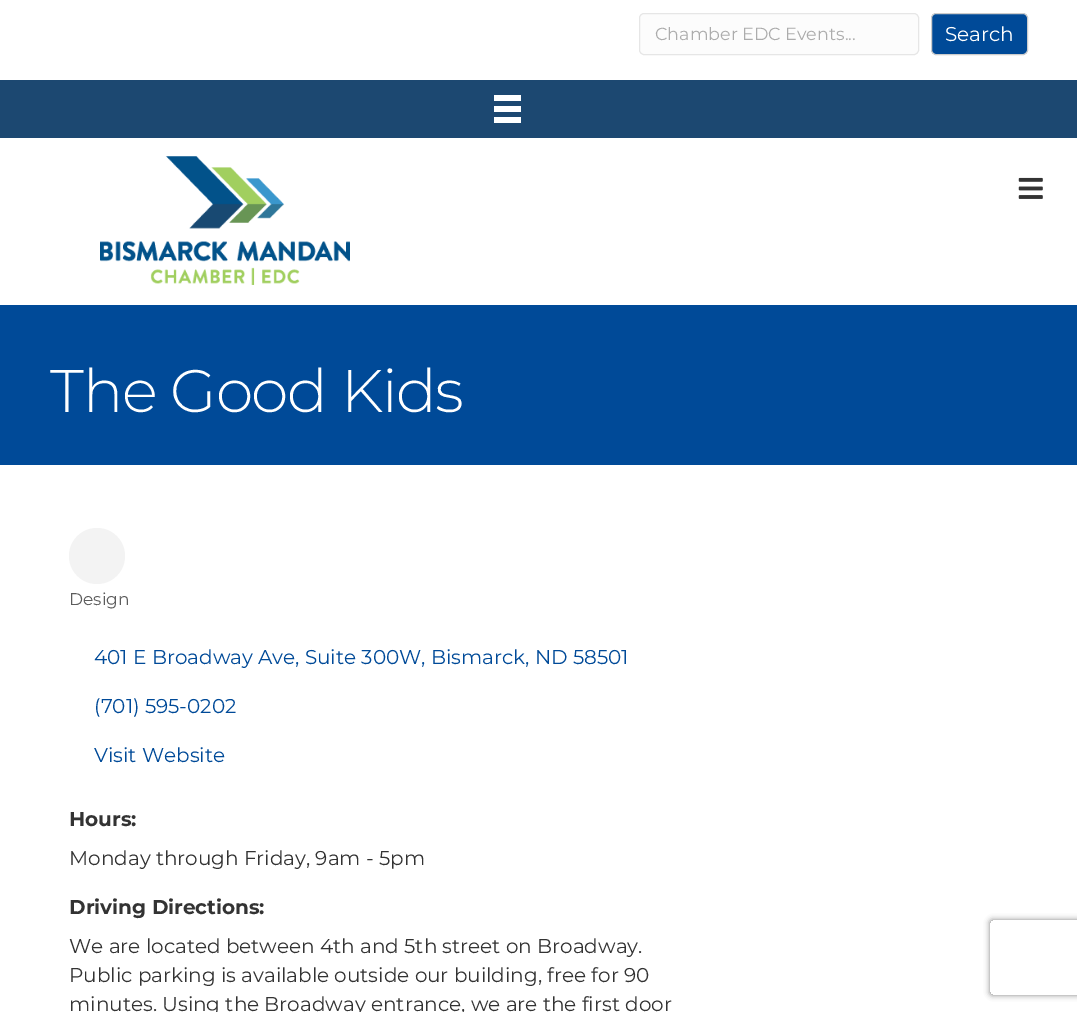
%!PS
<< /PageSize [1077 1012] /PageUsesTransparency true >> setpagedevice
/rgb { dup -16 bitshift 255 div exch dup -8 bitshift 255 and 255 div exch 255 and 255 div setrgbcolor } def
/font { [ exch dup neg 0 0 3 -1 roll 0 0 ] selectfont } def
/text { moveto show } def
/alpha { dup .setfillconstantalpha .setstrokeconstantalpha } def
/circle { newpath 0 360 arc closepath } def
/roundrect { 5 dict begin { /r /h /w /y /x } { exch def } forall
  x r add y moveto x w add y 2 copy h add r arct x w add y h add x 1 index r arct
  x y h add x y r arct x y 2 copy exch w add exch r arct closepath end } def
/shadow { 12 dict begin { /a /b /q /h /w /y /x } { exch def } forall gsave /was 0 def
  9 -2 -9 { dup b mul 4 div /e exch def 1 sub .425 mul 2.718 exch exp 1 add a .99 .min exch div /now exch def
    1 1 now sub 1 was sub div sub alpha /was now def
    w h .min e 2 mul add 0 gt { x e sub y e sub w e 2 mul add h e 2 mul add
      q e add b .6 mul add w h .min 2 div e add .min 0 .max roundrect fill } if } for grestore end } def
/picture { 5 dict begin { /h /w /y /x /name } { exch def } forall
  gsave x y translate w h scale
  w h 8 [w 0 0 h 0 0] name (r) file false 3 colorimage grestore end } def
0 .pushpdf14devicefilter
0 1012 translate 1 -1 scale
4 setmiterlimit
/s1 { /Montserrat-Regular 17.5 font 16#ACACAC rgb } def
/s2 { /Montserrat-Regular 20 font 16#FFFFFF rgb } def
/s3 { /Montserrat-Regular 17 font 16#5C5C5C rgb } def
/s4 { /Montserrat-Regular 20 font 16#004A98 rgb } def
/s5 { /Montserrat-Bold 20 font 16#333333 rgb } def
/s6 { /Montserrat-Regular 20 font 16#333333 rgb } def
16#FFFFFF rgb
0 0 1077 1012 rectfill
16#FCFCFC rgb
639.5 13.5 279 41 4.5 roundrect gsave fill grestore
16#E6E6E6 rgb
stroke
s1
(Chamber EDC Events...) 655 40 text
16#004A98 rgb
931.5 13.5 96 41 4.5 roundrect gsave fill grestore
16#CCCCCC rgb
stroke
s2
(Search) 945 41 text
16#1C4871 rgb
0 80 1077 58 rectfill
16#FFFFFF rgb
494 95 27 6 rectfill
494 106 27 6 rectfill
494 117 27 6 rectfill
(pic1.raw) 100 156 250 129 picture
(pic2.raw) 1018 177 25 22 picture
16#004A98 rgb
0 305 1077 160 rectfill
/Montserrat-Light 60 font
16#FFFFFF rgb
50 412 moveto -1.25 0 (The Good Kids) ashow
16#F3F3F3 rgb
97 556 28 circle fill
s3
(Design) 69 605 text
s4
(401 E Broadway Ave, Suite 300W, Bismarck, ND 58501) 94 664 text
(\(701\) 595-0202) 94 713 text
(Visit Website) 94 762 text
s5
(Hours:) 69 826 text
s6
(Monday through Friday, 9am - 5pm) 69 865 text
s5
(Driving Directions:) 69 914 text
s6
(We are located between 4th and 5th street on Broadway.) 69 953 text
(Public parking is available outside our building, free for 90) 69 982 text
(minutes. Using the Broadway entrance, we are the first door) 69 1011 text
gsave
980 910 moveto 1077 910 lineto 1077 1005 lineto 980 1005 lineto closepath 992.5 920 moveto 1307.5 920 lineto 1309 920 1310 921 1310 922.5 curveto 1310 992.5 lineto 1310 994 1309 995 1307.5 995 curveto 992.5 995 lineto 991 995 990 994 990 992.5 curveto 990 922.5 lineto 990 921 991 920 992.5 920 curveto closepath eoclip newpath
16#808080 rgb
990 920 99 75 2.5 3 1 shadow
grestore
.poppdf14devicefilter showpage
